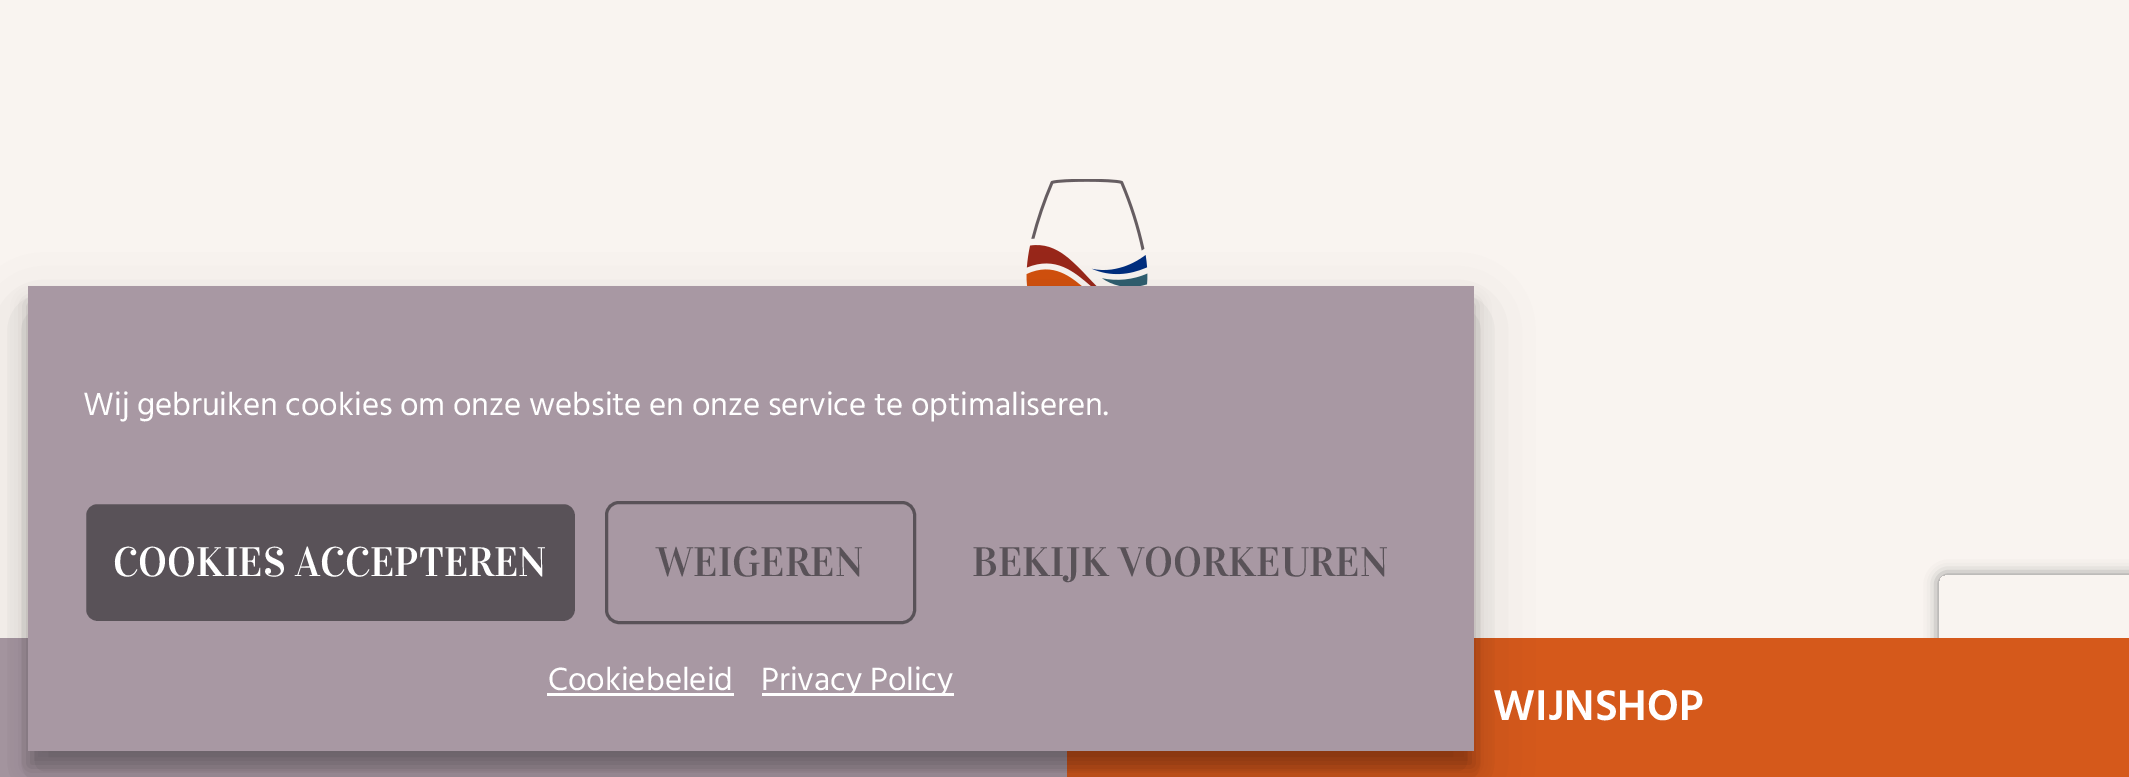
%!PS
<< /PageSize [2129 777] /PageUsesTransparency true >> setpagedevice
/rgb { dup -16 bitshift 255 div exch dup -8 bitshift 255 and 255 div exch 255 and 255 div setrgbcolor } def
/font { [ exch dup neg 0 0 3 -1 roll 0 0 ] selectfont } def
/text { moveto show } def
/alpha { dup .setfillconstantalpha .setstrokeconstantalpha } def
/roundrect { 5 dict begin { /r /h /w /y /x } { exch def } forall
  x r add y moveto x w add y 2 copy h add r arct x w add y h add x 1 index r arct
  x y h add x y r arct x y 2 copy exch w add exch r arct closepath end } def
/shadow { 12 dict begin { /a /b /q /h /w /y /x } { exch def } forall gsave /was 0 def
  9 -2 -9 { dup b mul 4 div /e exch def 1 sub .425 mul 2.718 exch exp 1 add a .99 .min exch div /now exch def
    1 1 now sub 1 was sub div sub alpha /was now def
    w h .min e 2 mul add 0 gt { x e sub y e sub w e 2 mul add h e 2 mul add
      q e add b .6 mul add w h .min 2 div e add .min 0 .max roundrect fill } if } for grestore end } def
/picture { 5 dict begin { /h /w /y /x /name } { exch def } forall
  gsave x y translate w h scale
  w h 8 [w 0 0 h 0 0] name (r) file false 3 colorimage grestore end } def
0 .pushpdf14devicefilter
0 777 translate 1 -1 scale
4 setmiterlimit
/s1 { /HindSiliguri-Regular 33 font 16#FFFFFF rgb } def
/s2 { /Vidaloka-Regular 41.25 font 16#FFFFFF rgb } def
/s3 { /Vidaloka-Regular 41.25 font 16#595258 rgb } def
/s4 { /HindSiliguri-SemiBold 44 font 16#FFFFFF rgb } def
16#F9F4F0 rgb
0 0 2129 777 rectfill
(pic1.raw) 1026 179 122 107 picture
16#A898A3 rgb
0 638 1067 139 rectfill
gsave
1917 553 moveto 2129 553 lineto 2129 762 lineto 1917 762 lineto closepath 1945 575 moveto 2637 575 lineto 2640.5 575 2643 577.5 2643 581 curveto 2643 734 lineto 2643 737.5 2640.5 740 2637 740 curveto 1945 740 lineto 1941.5 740 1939 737.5 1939 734 curveto 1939 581 lineto 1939 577.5 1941.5 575 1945 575 curveto closepath eoclip newpath
16#808080 rgb
1939 575 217 165 6 7 1 shadow
grestore
16#D5591B rgb
1067 638 1062 139 rectfill
16#000000 rgb
28 303 1446 464 0 8 0.23 shadow
28 314 1446 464 0 27.5 0.19 shadow
16#A898A3 rgb
28 286 1446 465 rectfill
s1
(Wij gebruiken cookies om onze website en onze service te optimaliseren.) 83 415 text
16#595258 rgb
84.5 502.5 492 120 12.5 roundrect gsave fill grestore
16#A898A3 rgb
3 setlinewidth
stroke
s2
(COOKIES ACCEPTEREN) 113 576 text
16#595258 rgb
606.5 502.5 308 120 12.5 roundrect stroke
(WEIGEREN) 656 576 text
(BEKIJK VOORKEUREN) 972 576 text
s1
(Cookiebeleid) 548 690 text
547 693 187 3 rectfill
762 693 192 3 rectfill
(Privacy Policy) 761 690 text
s4
(WIJNSHOP) 1493 720 text
.poppdf14devicefilter showpage
